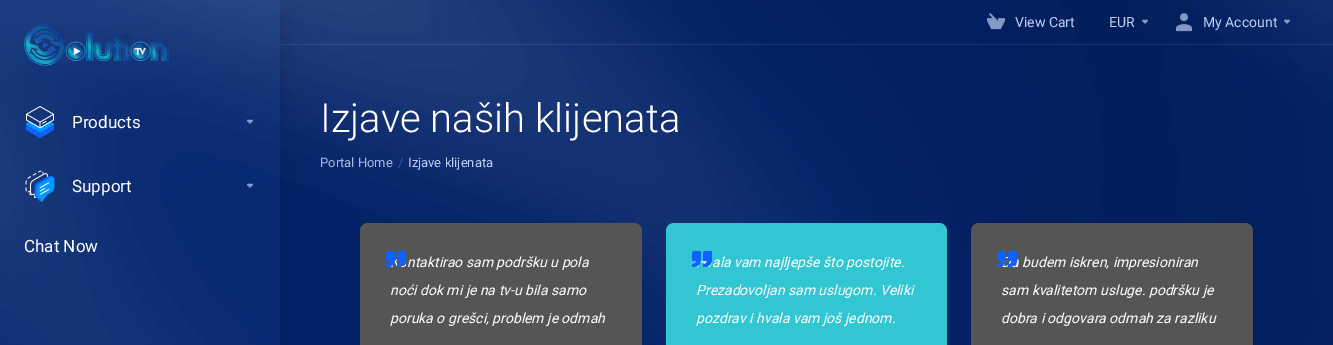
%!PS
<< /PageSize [1333 345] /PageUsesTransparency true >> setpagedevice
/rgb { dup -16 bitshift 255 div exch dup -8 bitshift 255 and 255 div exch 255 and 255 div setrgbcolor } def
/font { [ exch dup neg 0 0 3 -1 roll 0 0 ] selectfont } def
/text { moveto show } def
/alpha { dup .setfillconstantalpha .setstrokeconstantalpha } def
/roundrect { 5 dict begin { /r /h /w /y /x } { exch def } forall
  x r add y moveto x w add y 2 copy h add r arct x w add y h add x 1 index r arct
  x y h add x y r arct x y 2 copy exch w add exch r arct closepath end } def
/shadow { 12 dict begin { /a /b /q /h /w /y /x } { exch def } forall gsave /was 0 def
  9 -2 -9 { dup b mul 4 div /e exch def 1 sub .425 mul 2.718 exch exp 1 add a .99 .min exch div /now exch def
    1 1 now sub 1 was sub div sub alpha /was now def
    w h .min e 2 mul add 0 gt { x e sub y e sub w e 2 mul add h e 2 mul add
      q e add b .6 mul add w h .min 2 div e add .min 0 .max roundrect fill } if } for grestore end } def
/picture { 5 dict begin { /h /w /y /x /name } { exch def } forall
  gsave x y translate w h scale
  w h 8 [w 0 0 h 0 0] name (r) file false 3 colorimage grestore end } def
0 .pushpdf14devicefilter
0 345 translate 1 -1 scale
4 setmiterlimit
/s1 { /Roboto-Regular 17 font 16#FFFFFF rgb } def
/s2 { /Roboto-Regular 14 font 16#BDCFF4 rgb } def
/s3 { /Roboto-Light 40 font 16#FFFFFF rgb } def
/s4 { /Roboto-Regular 13 font 16#A5B9E2 rgb } def
/s5 { /Roboto-Regular 13 font 16#3A5591 rgb } def
/s6 { /Roboto-Regular 13 font 16#BDCFF4 rgb } def
/s7 { /Roboto-Italic 14 font 16#FFFFFF rgb } def
16#022268 rgb
0 0 1333 345 rectfill
(pic1.raw) 0 0 1333 345 picture
0.12 alpha
16#B2CCFF rgb
280 44 1053 1 rectfill
gsave
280 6 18 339 rectclip
1 alpha
16#000000 rgb
0 16 280 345 0 16 0.16 shadow
grestore
0.16 alpha
gsave 0 0 moveto 280 0 lineto 280 345 lineto 0 345 lineto closepath clip newpath
<< /ShadingType 2 /ColorSpace /DeviceRGB /Coords [140 0 140 345] /Extend [true true] /Function << /FunctionType 3 /Domain [0 1] /Functions [<< /FunctionType 2 /Domain [0 1] /C0 [0.294 0.471 0.824] /C1 [0.161 0.322 0.639] /N 1 >> << /FunctionType 2 /Domain [0 1] /C0 [0.161 0.322 0.639] /C1 [0.161 0.322 0.639] /N 1 >>] /Bounds [0.24] /Encode [0 1 0 1] >> >> shfill grestore
1 alpha
(pic2.raw) 24 24 145 42 picture
(pic3.raw) 26 106 28 32 picture
s1
(Products) 72 128 text
(pic4.raw) 247 119 6 5 picture
(pic5.raw) 25 170 30 32 picture
(Support) 72 192 text
(pic6.raw) 247 183 6 5 picture
(Chat Now) 24 252 text
(pic7.raw) 987 13 18 17 picture
s2
(View Cart) 1015 27 text
(EUR) 1109 27 text
(pic8.raw) 1142 19 6 5 picture
(pic9.raw) 1176 13 16 19 picture
(My Account) 1203 27 text
(pic10.raw) 1284 19 6 5 picture
s3
(Izjave naših klijenata) 320 132 text
s4
(Portal Home) 320 167 text
s5
(/) 398 167 text
s6
(Izjave klijenata) 408 167 text
16#555555 rgb
360 223 282 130 8 roundrect fill
(pic11.raw) 386 251 20 16 picture
s7
(ntaktirao sam podršku u pola) 407 267 text
(noći dok mi je na tv-u bila samo) 390 295 text
(poruka o grešci, problem je odmah) 390 323 text
16#32C5D2 rgb
666 223 281 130 8 roundrect fill
(pic12.raw) 692 251 20 16 picture
s7
(ala vam najljepše što postojite.) 712 267 text
(Prezadovoljan sam uslugom. Veliki) 696 295 text
(pozdrav i hvala vam još jednom.) 696 323 text
16#555555 rgb
971 223 282 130 8 roundrect fill
s7
(a budem iskren, impresioniran) 1011 267 text
(pic13.raw) 997 251 20 16 picture
(sam kvalitetom usluge. podršku je) 1001 295 text
(dobra i odgovara odmah za razliku) 1001 323 text
.poppdf14devicefilter showpage
